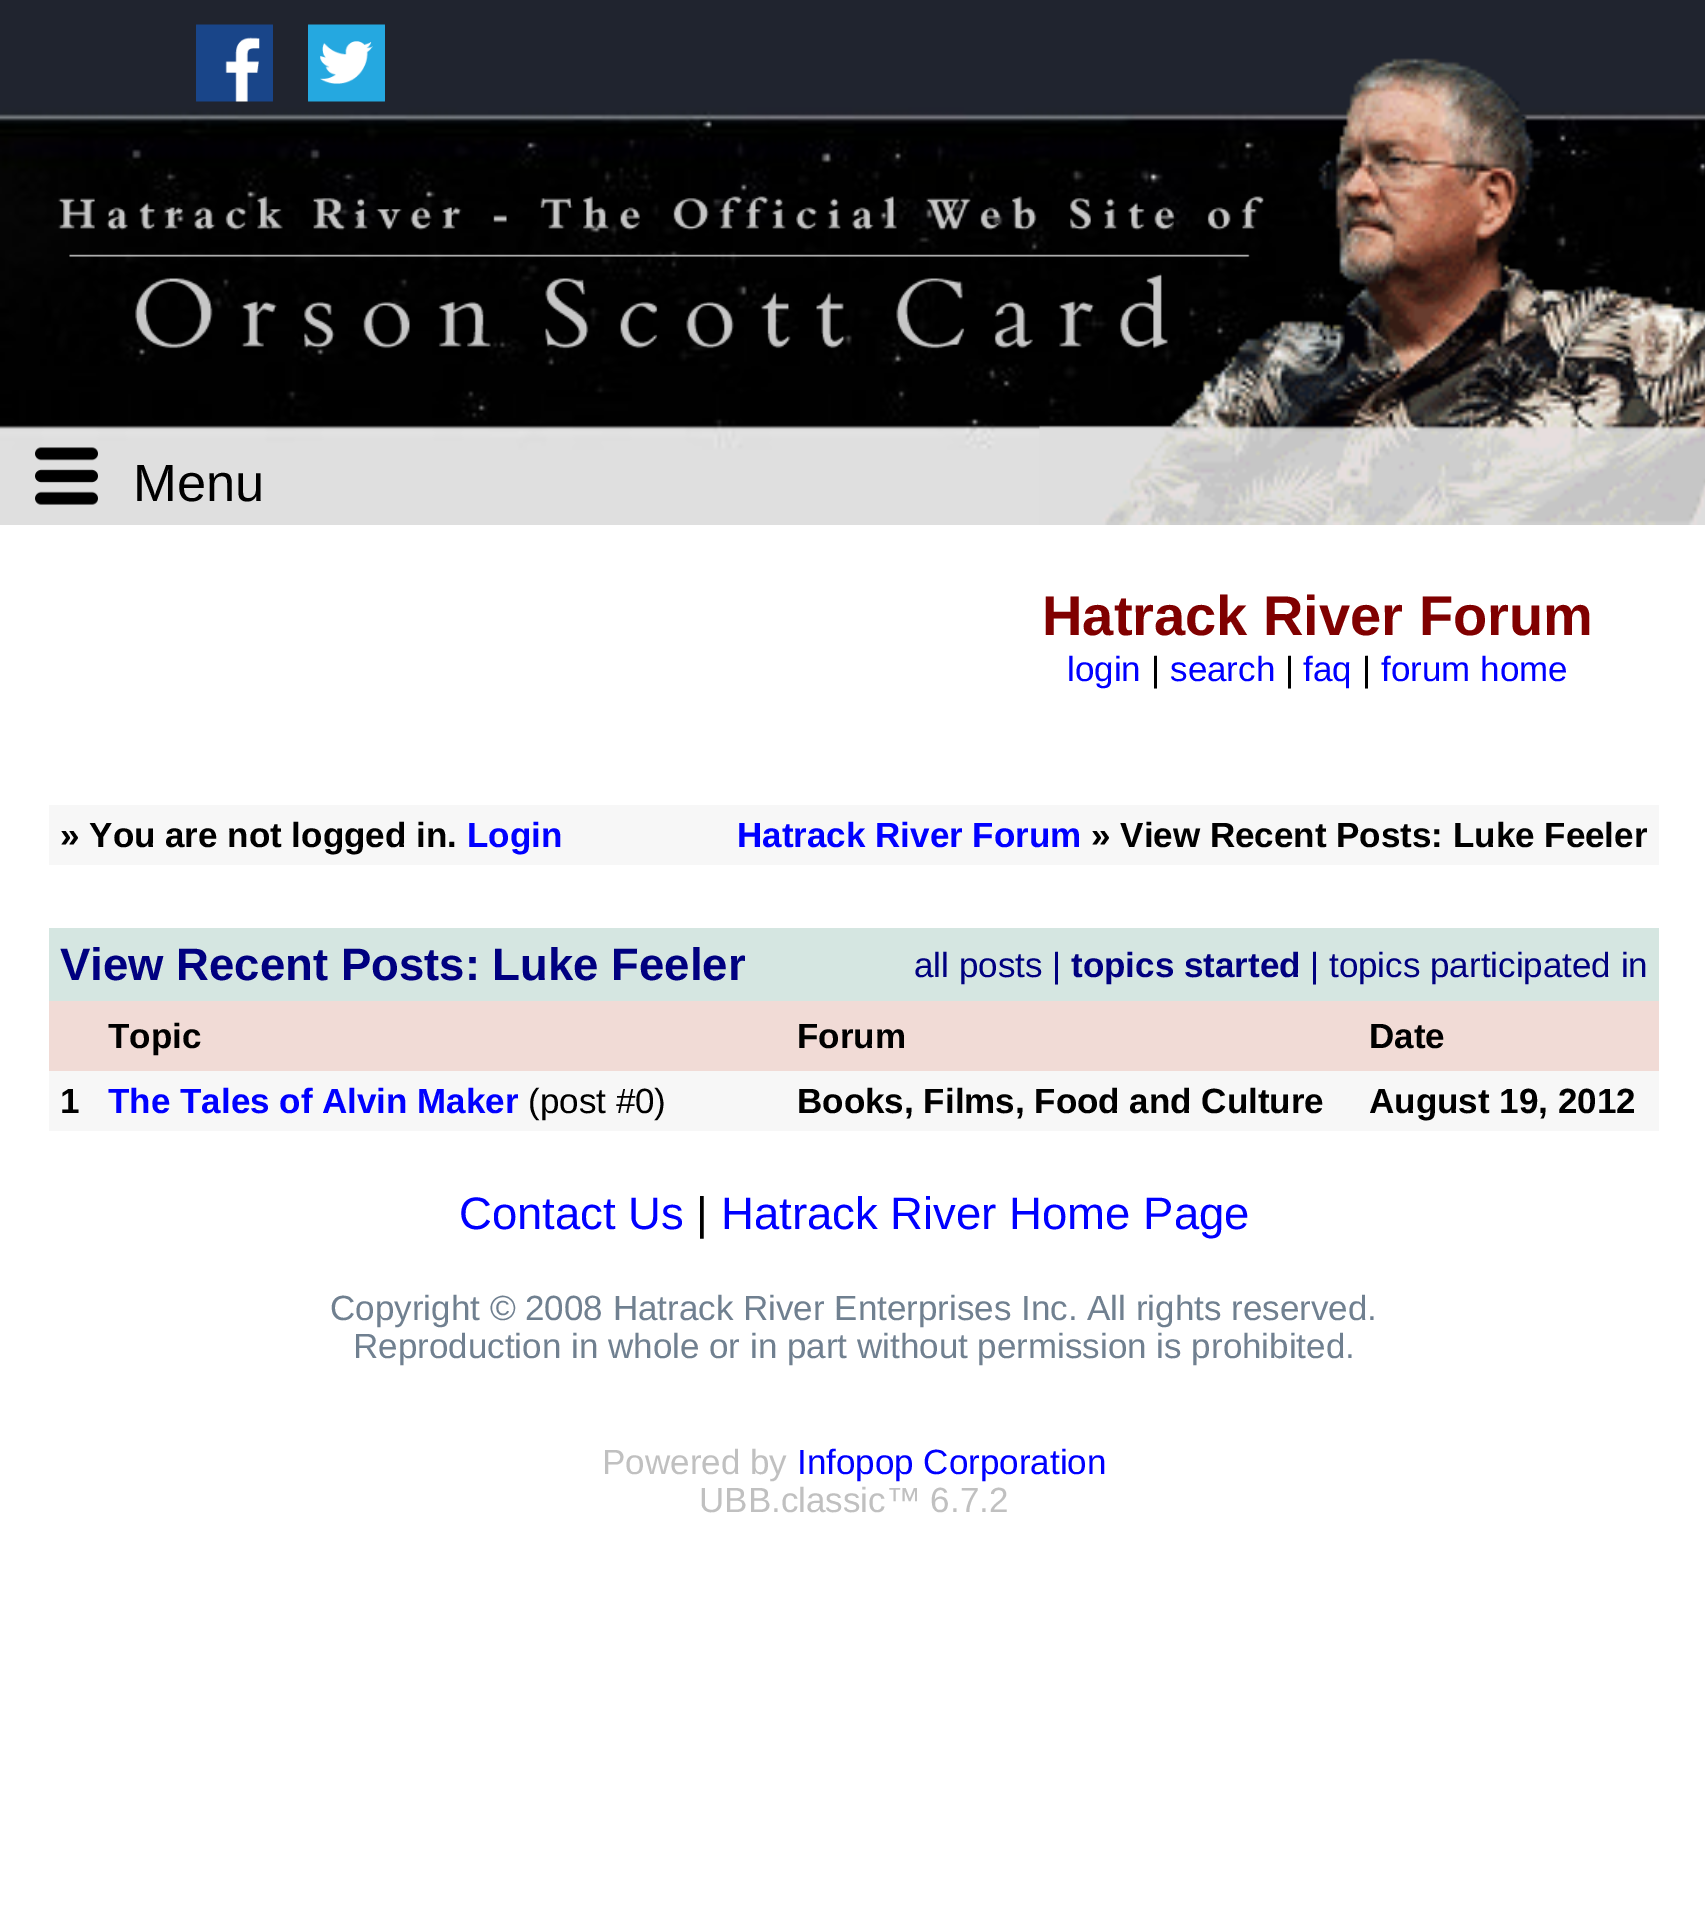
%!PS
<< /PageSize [1705 1929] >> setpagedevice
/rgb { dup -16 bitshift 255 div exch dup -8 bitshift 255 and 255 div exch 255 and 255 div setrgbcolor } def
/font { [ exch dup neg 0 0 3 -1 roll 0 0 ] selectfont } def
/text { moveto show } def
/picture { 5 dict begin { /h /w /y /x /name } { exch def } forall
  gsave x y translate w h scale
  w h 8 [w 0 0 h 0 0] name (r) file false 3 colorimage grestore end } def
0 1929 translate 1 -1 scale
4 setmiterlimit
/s1 { /LiberationSans-Regular 52.5 font 16#000000 rgb } def
/s2 { /LiberationSans-Bold 56 font 16#800000 rgb } def
/s3 { /LiberationSans-Regular 35 font 16#0000FF rgb } def
/s4 { /LiberationSans-Regular 35 font 16#000000 rgb } def
/s5 { /LiberationSans-Bold 35 font 16#000000 rgb } def
/s6 { /LiberationSans-Bold 35 font 16#0000FF rgb } def
/s7 { /LiberationSans-Bold 45.5 font 16#000080 rgb } def
/s8 { /LiberationSans-Regular 35 font 16#000080 rgb } def
/s9 { /LiberationSans-Bold 35 font 16#000080 rgb } def
/s10 { /LiberationSans-Regular 45.5 font 16#0000FF rgb } def
/s11 { /LiberationSans-Regular 45.5 font 16#000000 rgb } def
/s12 { /LiberationSans-Regular 35 font 16#708090 rgb } def
/s13 { /LiberationSans-Regular 35 font 16#C0C0C0 rgb } def
16#FFFFFF rgb
0 0 1705 1929 rectfill
(pic1.raw) 0 0 1705 525 picture
(pic2.raw) 196 24 77 78 picture
(pic3.raw) 308 24 77 78 picture
(pic5.raw) 1039 58 666 467 picture
(pic4.raw) 58 196 1206 153 picture
(pic6.raw) 35 447 63 58 picture
s1
(Menu) 133 501 text
s2
(Hatrack River Forum) 1042 635 text
s3
(login) 1067 681 text
s4
(|) 1151 681 text
s3
(search) 1170 681 text
s4
(|) 1285 681 text
s3
(faq) 1303 681 text
s4
(|) 1362 681 text
s3
(forum home) 1381 681 text
16#F7F7F7 rgb
49 805 1610 60 rectfill
s5
(» You are not logged in.) 60 847 text
s6
(Login) 467 847 text
(Hatrack River Forum) 737 847 text
s5
(» View Recent Posts: Luke Feeler) 1091 847 text
16#D5E6E1 rgb
49 928 1610 73 rectfill
s7
(View Recent Posts: Luke Feeler) 60 980 text
s8
(all posts |) 914 977 text
s9
(topics started) 1071 977 text
s8
(| topics participated in) 1310 977 text
16#F1DBD6 rgb
49 1001 1610 70 rectfill
s5
(Topic) 108 1048 text
(Forum) 797 1048 text
(Date) 1369 1048 text
16#F7F7F7 rgb
49 1071 1610 60 rectfill
s5
(1) 60 1113 text
s6
(The Tales of Alvin Maker) 108 1113 text
s4
(\(post #0\)) 528 1113 text
s5
(Books, Films, Food and Culture) 797 1113 text
(August 19, 2012) 1369 1113 text
s10
(Contact Us) 459 1229 text
s11
(|) 696 1229 text
s10
(Hatrack River Home Page) 721 1229 text
s12
(Copyright © 2008 Hatrack River Enterprises Inc. All rights reserved.) 330 1320 text
(Reproduction in whole or in part without permission is prohibited.) 353 1358 text
s13
(Powered by) 602 1474 text
s3
(Infopop Corporation) 797 1474 text
s13
(UBB.classic™ 6.7.2) 699 1512 text
showpage
